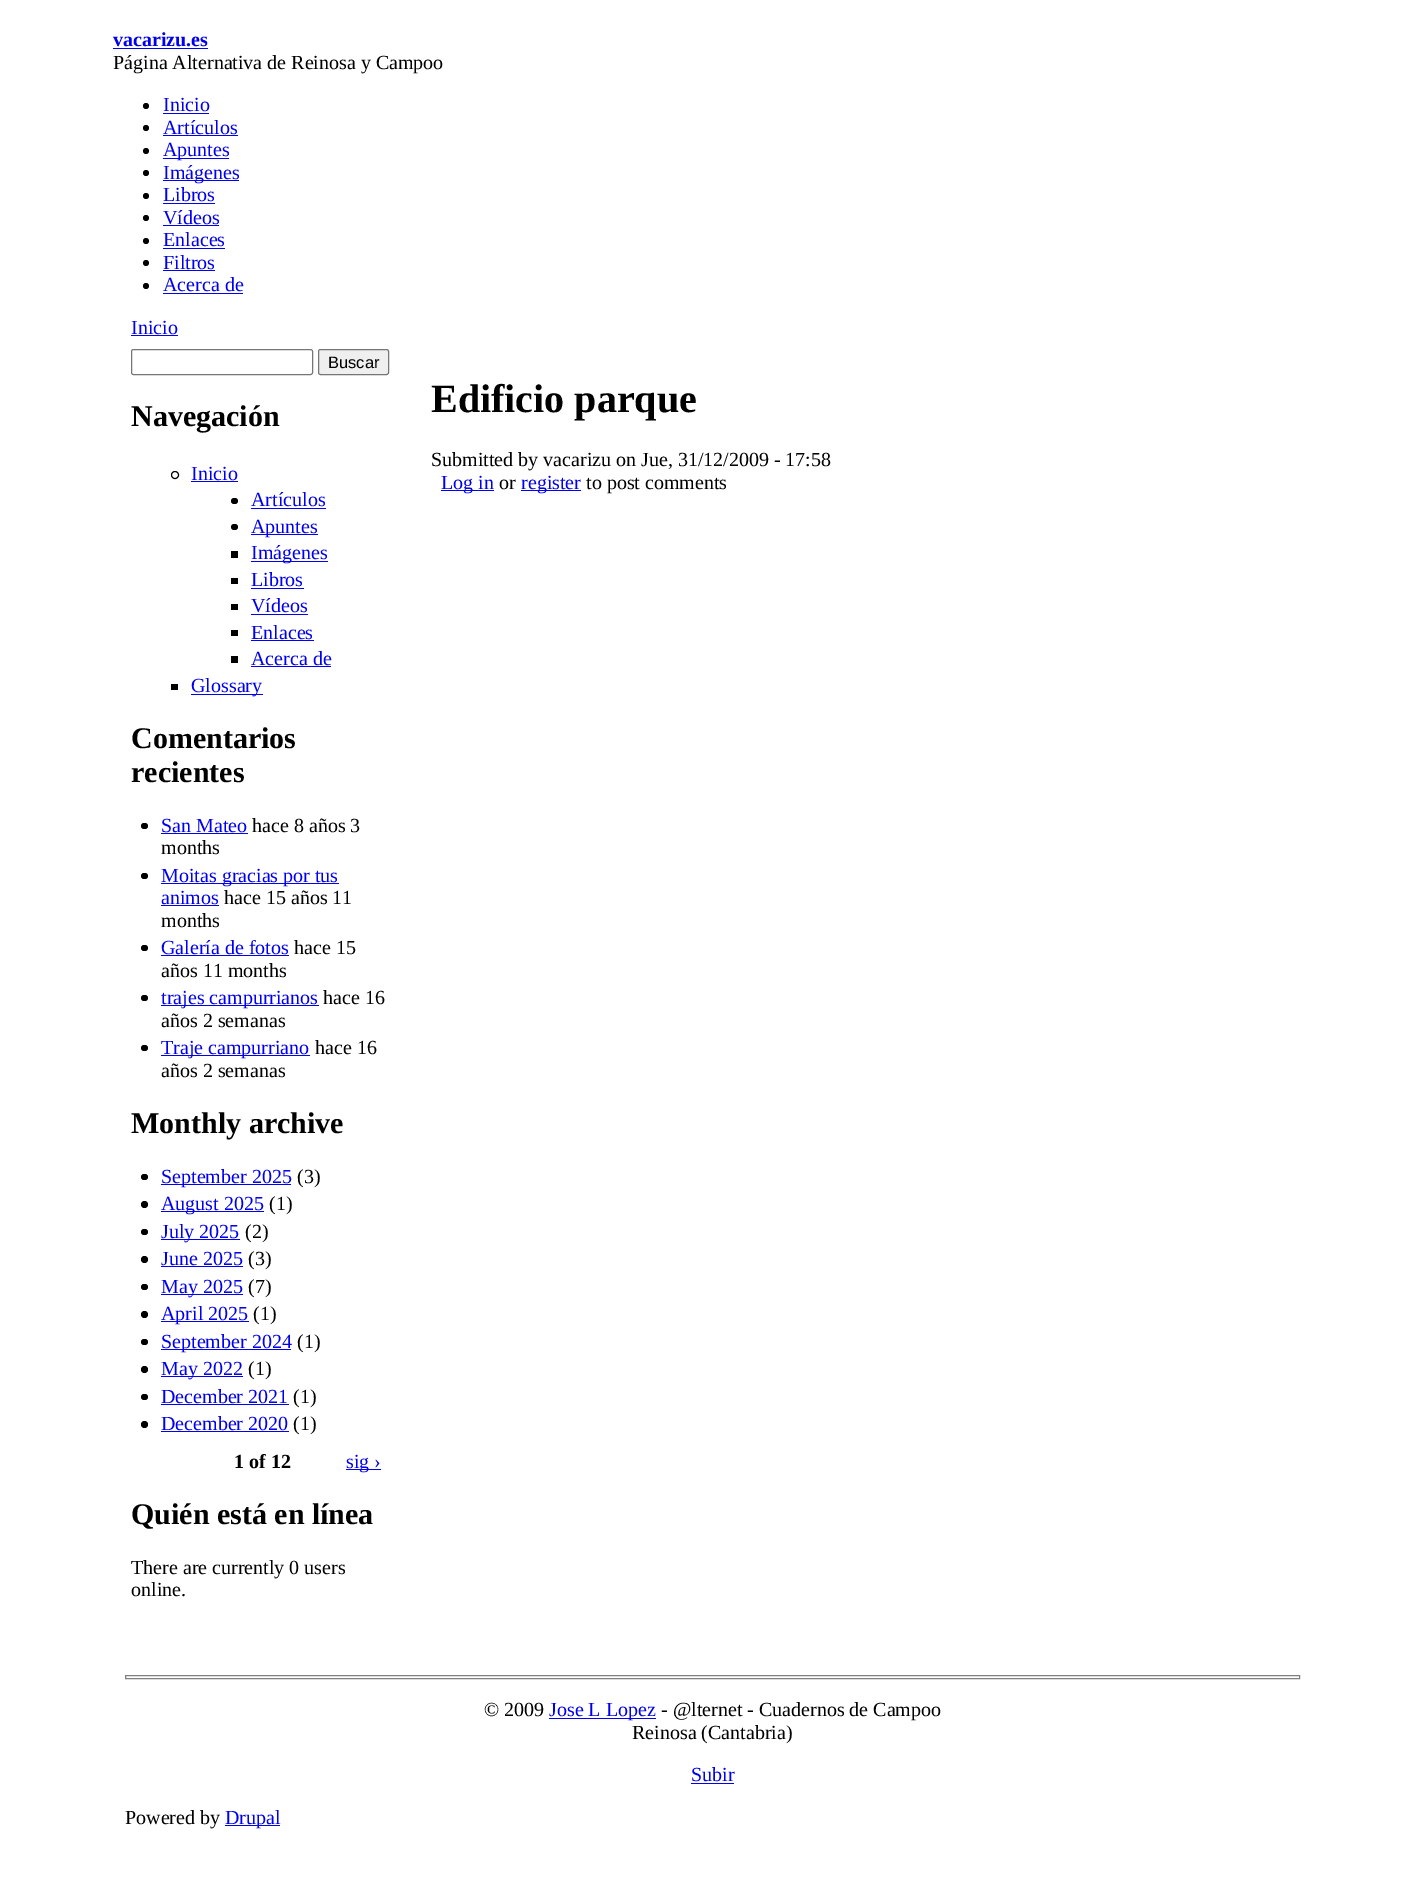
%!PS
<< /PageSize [1424 1899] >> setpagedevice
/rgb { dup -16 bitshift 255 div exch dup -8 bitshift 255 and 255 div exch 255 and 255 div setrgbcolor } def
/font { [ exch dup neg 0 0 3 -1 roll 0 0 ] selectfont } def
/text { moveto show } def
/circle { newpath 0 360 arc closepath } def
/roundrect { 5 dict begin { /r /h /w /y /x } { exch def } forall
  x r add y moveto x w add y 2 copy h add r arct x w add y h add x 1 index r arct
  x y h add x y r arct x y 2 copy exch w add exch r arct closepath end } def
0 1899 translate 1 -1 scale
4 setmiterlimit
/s1 { /LiberationSerif-Bold 20 font 16#0000EE rgb } def
/s2 { /LiberationSerif-Regular 20 font 16#000000 rgb } def
/s3 { /LiberationSerif-Regular 20 font 16#0000EE rgb } def
/s4 { /LiberationSans-Regular 16.5 font 16#000000 rgb } def
/s5 { /LiberationSerif-Bold 30 font 16#000000 rgb } def
/s6 { /LiberationSerif-Bold 20 font 16#000000 rgb } def
/s7 { /LiberationSerif-Bold 40 font 16#000000 rgb } def
16#FFFFFF rgb
0 0 1424 1899 rectfill
s1
(vacarizu.es) 113 46 text
113 48 95 1 rectfill
s2
(Página Alternativa de Reinosa y Campoo) 113 69 text
146 106 3 circle fill
s3
(Inicio) 163 111 text
163 113 46 1 rectfill
16#000000 rgb
146 128 3 circle fill
s3
(Artículos) 163 134 text
163 135 75 1 rectfill
16#000000 rgb
146 151 3 circle fill
16#0000EE rgb
163 158 66 1 rectfill
(Apuntes) 163 156 text
16#000000 rgb
146 173 3 circle fill
16#0000EE rgb
163 180 76 1 rectfill
(Imágenes) 163 179 text
16#000000 rgb
146 196 3 circle fill
s3
(Libros) 163 201 text
163 203 52 1 rectfill
16#000000 rgb
146 218 3 circle fill
s3
(Vídeos) 163 224 text
163 225 56 1 rectfill
16#000000 rgb
146 241 3 circle fill
s3
(Enlaces) 163 246 text
163 248 62 1 rectfill
16#000000 rgb
146 263 3 circle fill
s3
(Filtros) 163 269 text
163 270 52 1 rectfill
16#000000 rgb
146 286 3 circle fill
s3
(Acerca de) 163 291 text
163 293 80 1 rectfill
(Inicio) 131 334 text
131 335 47 1 rectfill
16#767676 rgb
131.5 349.5 181 25 2 roundrect stroke
16#EFEFEF rgb
318.5 349.5 70 25 2 roundrect gsave fill grestore
16#767676 rgb
stroke
s4
(Buscar) 328 368 text
s5
(Navegación) 131 426 text
175 475 3.5 circle stroke
s3
(Inicio) 191 480 text
191 481 47 1 rectfill
16#000000 rgb
231 498 7 6 3 roundrect fill
s3
(Artículos) 251 506 text
251 508 75 1 rectfill
16#000000 rgb
231 524 7 6 3 roundrect fill
16#0000EE rgb
251 534 67 1 rectfill
(Apuntes) 251 533 text
16#000000 rgb
231 551 7 7 rectfill
16#0000EE rgb
251 561 77 1 rectfill
(Imágenes) 251 559 text
16#000000 rgb
231 578 7 6 rectfill
s3
(Libros) 251 586 text
251 588 53 1 rectfill
16#000000 rgb
231 604 7 6 rectfill
s3
(Vídeos) 251 612 text
251 614 57 1 rectfill
16#000000 rgb
231 630 7 6 rectfill
s3
(Enlaces) 251 639 text
251 640 63 1 rectfill
16#000000 rgb
231 656 7 7 rectfill
s3
(Acerca de) 251 665 text
251 666 80 1 rectfill
16#000000 rgb
171 684 7 6 rectfill
16#0000EE rgb
191 694 72 1 rectfill
(Glossary) 191 692 text
s5
(Comentarios) 131 748 text
(recientes) 131 782 text
141 823 7 6 3 roundrect fill
s3
(San Mateo) 161 832 text
161 833 87 1 rectfill
s2
(hace 8 años 3) 252 832 text
(months) 161 854 text
141 873 7 6 3 roundrect fill
16#0000EE rgb
161 883 178 1 rectfill
(Moitas gracias por tus) 161 882 text
(animos) 161 904 text
161 905 58 1 rectfill
s2
(hace 15 años 11) 224 904 text
(months) 161 927 text
141 945 7 6 3 roundrect fill
s3
(Galería de fotos) 161 954 text
161 955 128 1 rectfill
s2
(hace 15) 294 954 text
(años 11 months) 161 977 text
141 995 7 6 3 roundrect fill
16#0000EE rgb
161 1005 158 1 rectfill
(trajes campurrianos) 161 1004 text
s2
(hace 16) 323 1004 text
(años 2 semanas) 161 1027 text
141 1045 7 6 3 roundrect fill
16#0000EE rgb
161 1055 149 1 rectfill
(Traje campurriano) 161 1054 text
s2
(hace 16) 315 1054 text
(años 2 semanas) 161 1077 text
s5
(Monthly archive) 131 1133 text
141 1174 7 6 3 roundrect fill
16#0000EE rgb
161 1184 130 1 rectfill
s3
(September 2025) 161 1183 text
s2
(\(3\)) 297 1183 text
144.5 1204.5 3.5 circle fill
16#0000EE rgb
161 1211 103 1 rectfill
(August 2025) 161 1210 text
s2
(\(1\)) 269 1210 text
141 1229 7 6 3 roundrect fill
16#0000EE rgb
161 1239 79 1 rectfill
(July 2025) 161 1238 text
s2
(\(2\)) 245 1238 text
144.5 1259.5 3.5 circle fill
s3
(June 2025) 161 1265 text
161 1266 82 1 rectfill
s2
(\(3\)) 248 1265 text
141 1284 7 6 3 roundrect fill
16#0000EE rgb
161 1294 82 1 rectfill
(May 2025) 161 1293 text
s2
(\(7\)) 248 1293 text
144.5 1314.5 3.5 circle fill
16#0000EE rgb
161 1321 88 1 rectfill
(April 2025) 161 1320 text
s2
(\(1\)) 253 1320 text
141 1339 7 6 3 roundrect fill
16#0000EE rgb
161 1349 130 1 rectfill
(September 2024) 161 1348 text
s2
(\(1\)) 297 1348 text
144.5 1369.5 3.5 circle fill
16#0000EE rgb
161 1376 82 1 rectfill
(May 2022) 161 1375 text
s2
(\(1\)) 248 1375 text
141 1394 7 6 3 roundrect fill
s3
(December 2021) 161 1403 text
161 1404 128 1 rectfill
s2
(\(1\)) 293 1403 text
144.5 1424.5 3.5 circle fill
s3
(December 2020) 161 1430 text
161 1431 128 1 rectfill
s2
(\(1\)) 293 1430 text
s6
(1 of 12) 234 1468 text
16#0000EE rgb
346 1469 35 1 rectfill
s3
(sig ›) 346 1468 text
s5
(Quién está en línea) 131 1524 text
s2
(There are currently 0 users) 131 1574 text
(online.) 131 1596 text
s7
(Edificio parque) 431 412 text
s2
(Submitted by vacarizu on Jue, 31/12/2009 - 17:58) 431 466 text
16#0000EE rgb
441 490 53 1 rectfill
(Log in) 441 489 text
s2
(or) 499 489 text
16#0000EE rgb
521 490 60 1 rectfill
(register) 521 489 text
s2
(to post comments) 586 489 text
16#808080 rgb
125.5 1675.5 1174 3 rectstroke
s2
(© 2009) 484 1716 text
16#0000EE rgb
549 1718 107 1 rectfill
(Jose L Lopez) 549 1716 text
s2
(- @lternet - Cuadernos de Campoo) 661 1716 text
(Reinosa \(Cantabria\)) 632 1739 text
s3
(Subir) 691 1781 text
691 1783 43 1 rectfill
s2
(Powered by) 125 1824 text
16#0000EE rgb
225 1825 55 1 rectfill
(Drupal) 225 1824 text
showpage
